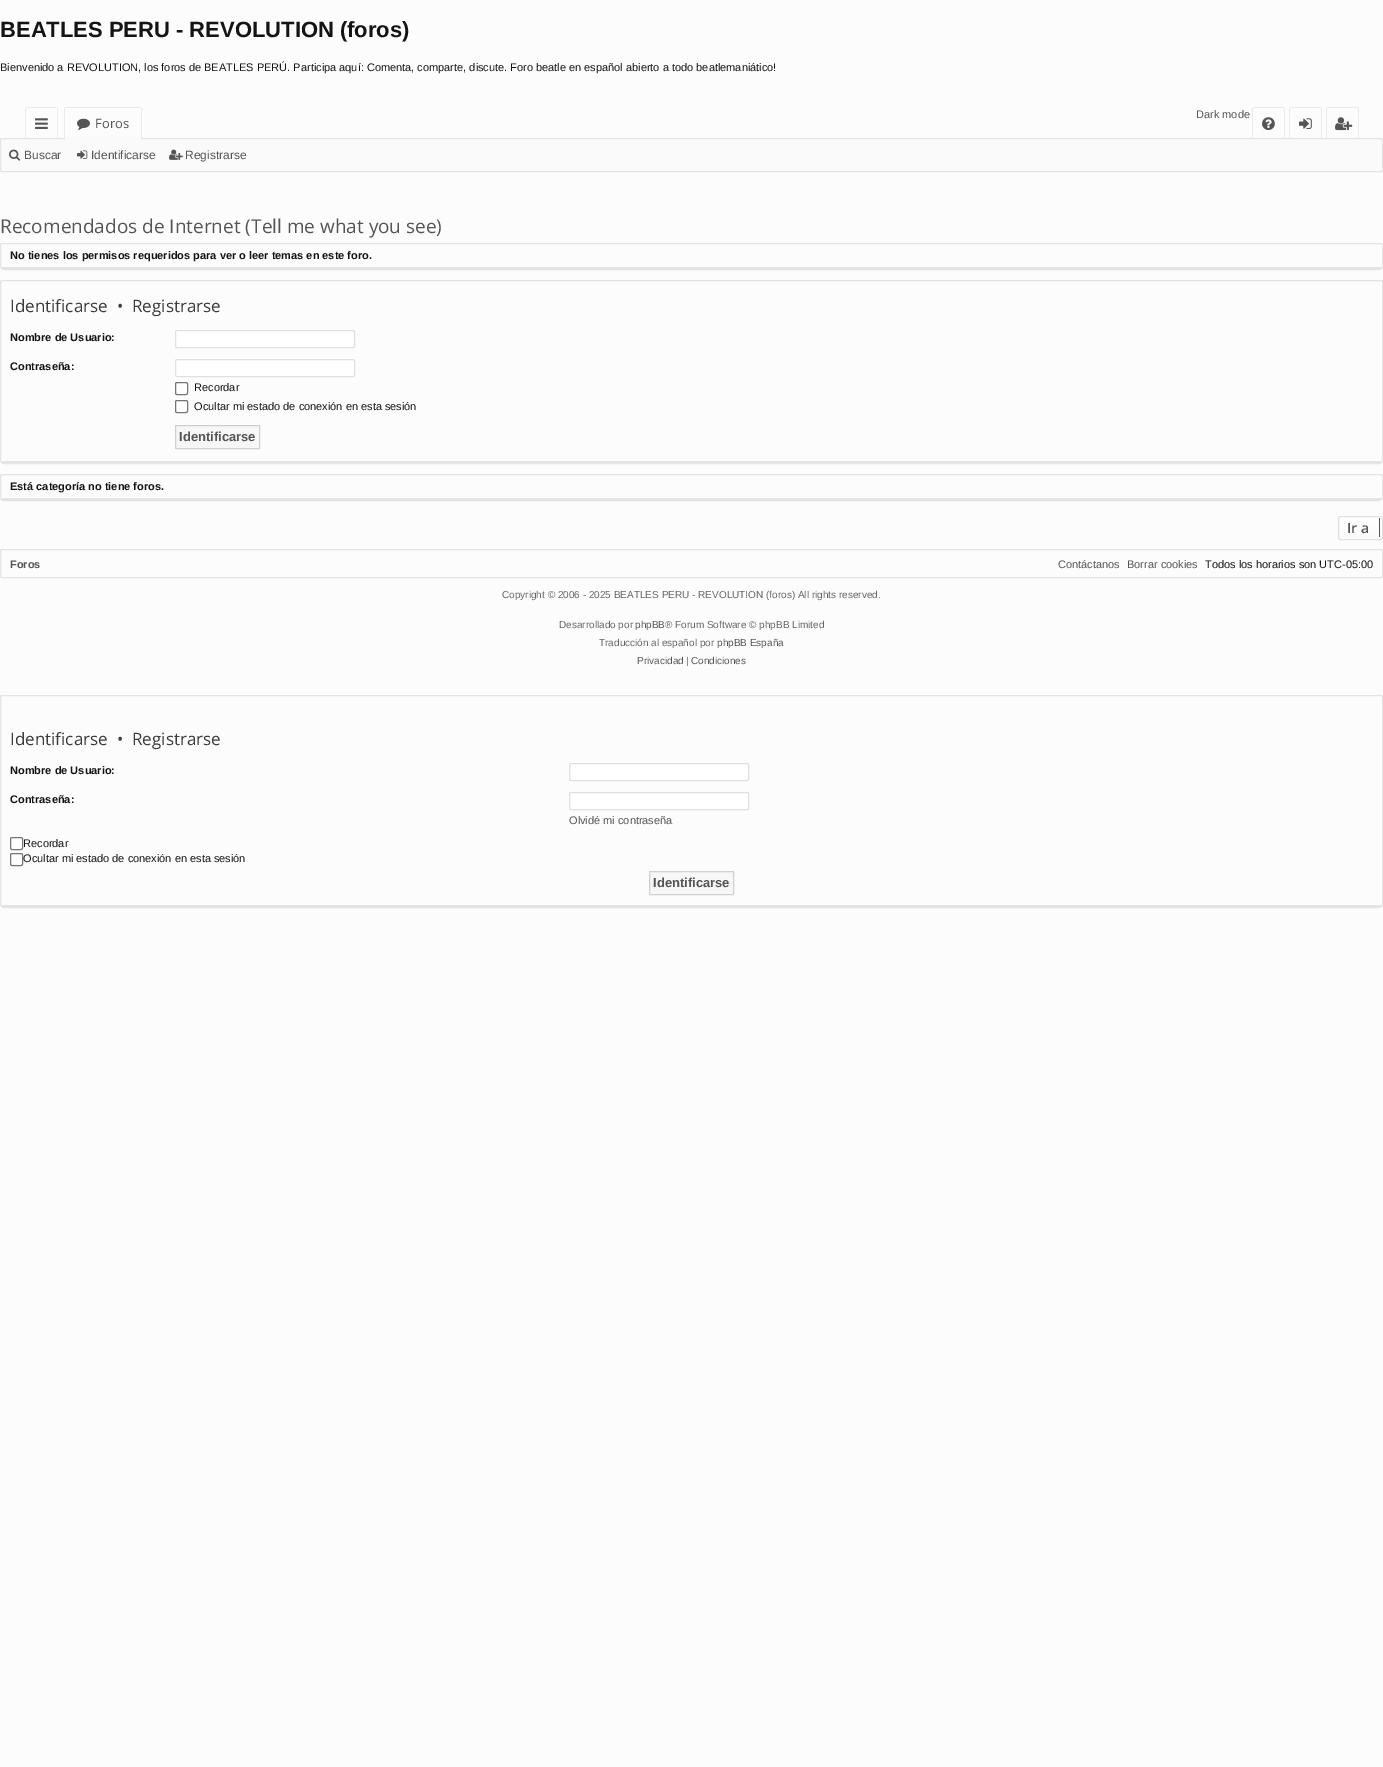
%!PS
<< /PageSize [1383 1767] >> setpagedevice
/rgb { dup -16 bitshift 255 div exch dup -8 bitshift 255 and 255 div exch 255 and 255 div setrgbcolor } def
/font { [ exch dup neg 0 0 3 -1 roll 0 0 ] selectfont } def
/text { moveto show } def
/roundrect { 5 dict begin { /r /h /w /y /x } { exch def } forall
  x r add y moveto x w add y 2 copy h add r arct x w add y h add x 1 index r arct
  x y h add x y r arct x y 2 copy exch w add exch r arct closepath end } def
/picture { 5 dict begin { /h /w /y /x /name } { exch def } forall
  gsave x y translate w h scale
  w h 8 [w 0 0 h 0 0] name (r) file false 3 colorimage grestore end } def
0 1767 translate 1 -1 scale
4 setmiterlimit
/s1 { /LiberationSans-Bold 22 font 16#141414 rgb } def
/s2 { /LiberationSans-Regular 11 font 16#141414 rgb } def
/s3 { /LiberationSans-Regular 11 font 16#555555 rgb } def
/s4 { /OpenSans-Regular 13 font 16#555555 rgb } def
/s5 { /LiberationSans-Regular 12 font 16#555555 rgb } def
/s6 { /OpenSans-Regular 19 font 16#555555 rgb } def
/s7 { /LiberationSans-Bold 11 font 16#141414 rgb } def
/s8 { /OpenSans-Regular 17 font 16#3C3C3C rgb } def
/s9 { /LiberationSans-Bold 13 font 16#555555 rgb } def
/s10 { /OpenSans-SemiBold 14 font 16#555555 rgb } def
/s11 { /LiberationSans-Bold 11 font 16#555555 rgb } def
/s12 { /LiberationSans-Regular 10 font 16#656565 rgb } def
/s13 { /LiberationSans-Regular 10 font 16#555555 rgb } def
16#FCFCFC rgb
0 0 1383 1767 rectfill
s1
(BEATLES PERU - REVOLUTION \(foros\)) 0 37 text
s2
(Bienvenido a REVOLUTION, los foros de BEATLES PERÚ. Participa aquí: Comenta, comparte, discute. Foro beatle en español abierto a todo beatlemaniático!) 0 71 text
s3
(Dark mode) 1196 118 text
16#EBEBEB rgb
1253 107 31 1 rectfill
1284 108 1 31 rectfill
1252 108 1 31 rectfill
(pic1.raw) 1262 117 13 14 picture
1290 107 31 1 rectfill
1321 108 1 31 rectfill
1289 108 1 31 rectfill
(pic2.raw) 1299 118 13 11 picture
1327 107 31 1 rectfill
1358 108 1 31 rectfill
1326 108 1 31 rectfill
(pic3.raw) 1335 117 18 14 picture
26 107 31 1 rectfill
57 108 1 31 rectfill
25 108 1 31 rectfill
(pic4.raw) 35 118 13 11 picture
65 107 76 1 rectfill
141 108 1 31 rectfill
64 108 1 31 rectfill
(pic5.raw) 77 118 13 12 picture
s4
(Foros) 95 128 text
16#FAFAFA rgb
0.5 138.5 1382 33 1.5 roundrect gsave fill grestore
16#E4E4E4 rgb
stroke
16#FAFAFA rgb
67 137 moveto 139 137 lineto 140 137 141 138 141 139 curveto 141 141 lineto 65 141 lineto 65 139 lineto 65 138 66 137 67 137 curveto closepath fill
(pic6.raw) 9 149 12 12 picture
s5
(Buscar) 24 159 text
(pic7.raw) 77 150 11 9 picture
(Identificarse) 91 159 text
(pic8.raw) 169 149 14 11 picture
(Registrarse) 185 159 text
s6
(Recomendados de Internet \(Tell me what you see\)) 0 233 text
16#E4E4E4 rgb
2 243.5 moveto 1381 243.5 lineto 1382 243.5 1382.5 244 1382.5 245 curveto 1382.5 266 lineto 1382.5 268 1381 269.5 1379 269.5 curveto 4 269.5 lineto 2 269.5 0.5 268 0.5 266 curveto 0.5 245 lineto 0.5 244 1 243.5 2 243.5 curveto closepath stroke
2 267 1379 2 rectfill
s7
(No tienes los permisos requeridos para ver o leer temas en este foro.) 10 259 text
16#E4E4E4 rgb
2 280.5 moveto 1381 280.5 lineto 1382 280.5 1382.5 281 1382.5 282 curveto 1382.5 460 lineto 1382.5 462 1381 463.5 1379 463.5 curveto 4 463.5 lineto 2 463.5 0.5 462 0.5 460 curveto 0.5 282 lineto 0.5 281 1 280.5 2 280.5 curveto closepath stroke
2 461 1379 2 rectfill
s8
(Identificarse) 10 312 text
(•) 117 312 text
(Registrarse) 132 312 text
s7
(Nombre de Usuario:) 10 341 text
16#FFFFFF rgb
175.5 330.5 179 17 1.5 roundrect gsave fill grestore
16#E0E0E0 rgb
stroke
s7
(Contraseña:) 10 370 text
16#FFFFFF rgb
175.5 359.5 179 17 1.5 roundrect gsave fill grestore
16#E0E0E0 rgb
stroke
16#FFFFFF rgb
175.5 382.5 12 12 1.5 roundrect gsave fill grestore
16#767676 rgb
stroke
s2
(Recordar) 194 391 text
16#FFFFFF rgb
175.5 400.5 12 12 1.5 roundrect gsave fill grestore
16#767676 rgb
stroke
s2
(Ocultar mi estado de conexión en esta sesión) 194 410 text
gsave 176 426 moveto 259 426 lineto 259 448 lineto 176 448 lineto closepath clip newpath
<< /ShadingType 2 /ColorSpace /DeviceRGB /Coords [218 426 218 448] /Extend [true true] /Function << /FunctionType 2 /Domain [0 1] /C0 [0.973 0.973 0.973] /C1 [0.965 0.965 0.965] /N 1 >> >> shfill grestore
16#D0D0D0 rgb
175.5 425.5 84 23 0.5 roundrect stroke
s9
(Identificarse) 179 441 text
16#E4E4E4 rgb
2 474.5 moveto 1381 474.5 lineto 1382 474.5 1382.5 475 1382.5 476 curveto 1382.5 497 lineto 1382.5 499 1381 500.5 1379 500.5 curveto 4 500.5 lineto 2 500.5 0.5 499 0.5 497 curveto 0.5 476 lineto 0.5 475 1 474.5 2 474.5 curveto closepath stroke
2 498 1379 2 rectfill
s7
(Está categoría no tiene foros.) 10 490 text
gsave
1338 516 45 24 2 roundrect clip newpath
gsave 1338 517 moveto 1383 517 lineto 1383 539 lineto 1338 539 lineto closepath clip newpath
<< /ShadingType 2 /ColorSpace /DeviceRGB /Coords [1361 517 1361 539] /Extend [true true] /Function << /FunctionType 2 /Domain [0 1] /C0 [1 1 1] /C1 [0.98 0.98 0.98] /N 1 >> >> shfill grestore
grestore
16#E0E0E0 rgb
1338.5 516.5 44 23 1.5 roundrect stroke
s10
(Ir a) 1347 533 text
1379 518 1 19 rectfill
16#E4E4E4 rgb
0.5 549.5 1382 28 1.5 roundrect stroke
s11
(Foros) 10 568 text
s3
(Contáctanos) 1058 568 text
(Borrar cookies) 1127 568 text
s2
(Todos los horarios son UTC-05:00) 1205 568 text
s12
(Copyright © 2006 - 2025 BEATLES PERU - REVOLUTION \(foros\) All rights reserved.) 502 598 text
(Desarrollado por) 559 628 text
s13
(phpBB) 635 628 text
s12
(® Forum Software © phpBB Limited) 665 628 text
(Traducción al español por) 599 646 text
s13
(phpBB España) 717 646 text
(Privacidad) 637 664 text
s12
(|) 686 664 text
s13
(Condiciones) 691 664 text
16#E4E4E4 rgb
2 695.5 moveto 1381 695.5 lineto 1382 695.5 1382.5 696 1382.5 697 curveto 1382.5 904 lineto 1382.5 906 1381 907.5 1379 907.5 curveto 4 907.5 lineto 2 907.5 0.5 906 0.5 904 curveto 0.5 697 lineto 0.5 696 1 695.5 2 695.5 curveto closepath stroke
2 905 1379 2 rectfill
s8
(Identificarse) 10 745 text
(•) 117 745 text
(Registrarse) 132 745 text
s7
(Nombre de Usuario:) 10 774 text
16#FFFFFF rgb
569.5 763.5 179 17 1.5 roundrect gsave fill grestore
16#E0E0E0 rgb
stroke
s7
(Contraseña:) 10 803 text
16#FFFFFF rgb
569.5 792.5 179 17 1.5 roundrect gsave fill grestore
16#E0E0E0 rgb
stroke
s3
(Olvidé mi contraseña) 569 824 text
16#FFFFFF rgb
10.5 837.5 12 12 1.5 roundrect gsave fill grestore
16#767676 rgb
stroke
s2
(Recordar) 23 847 text
16#FFFFFF rgb
10.5 853.5 12 12 1.5 roundrect gsave fill grestore
16#767676 rgb
stroke
s2
(Ocultar mi estado de conexión en esta sesión) 23 862 text
gsave 650 872 moveto 733 872 lineto 733 894 lineto 650 894 lineto closepath clip newpath
<< /ShadingType 2 /ColorSpace /DeviceRGB /Coords [692 872 692 894] /Extend [true true] /Function << /FunctionType 2 /Domain [0 1] /C0 [0.973 0.973 0.973] /C1 [0.965 0.965 0.965] /N 1 >> >> shfill grestore
16#D0D0D0 rgb
649.5 871.5 84 23 0.5 roundrect stroke
s9
(Identificarse) 653 887 text
showpage
